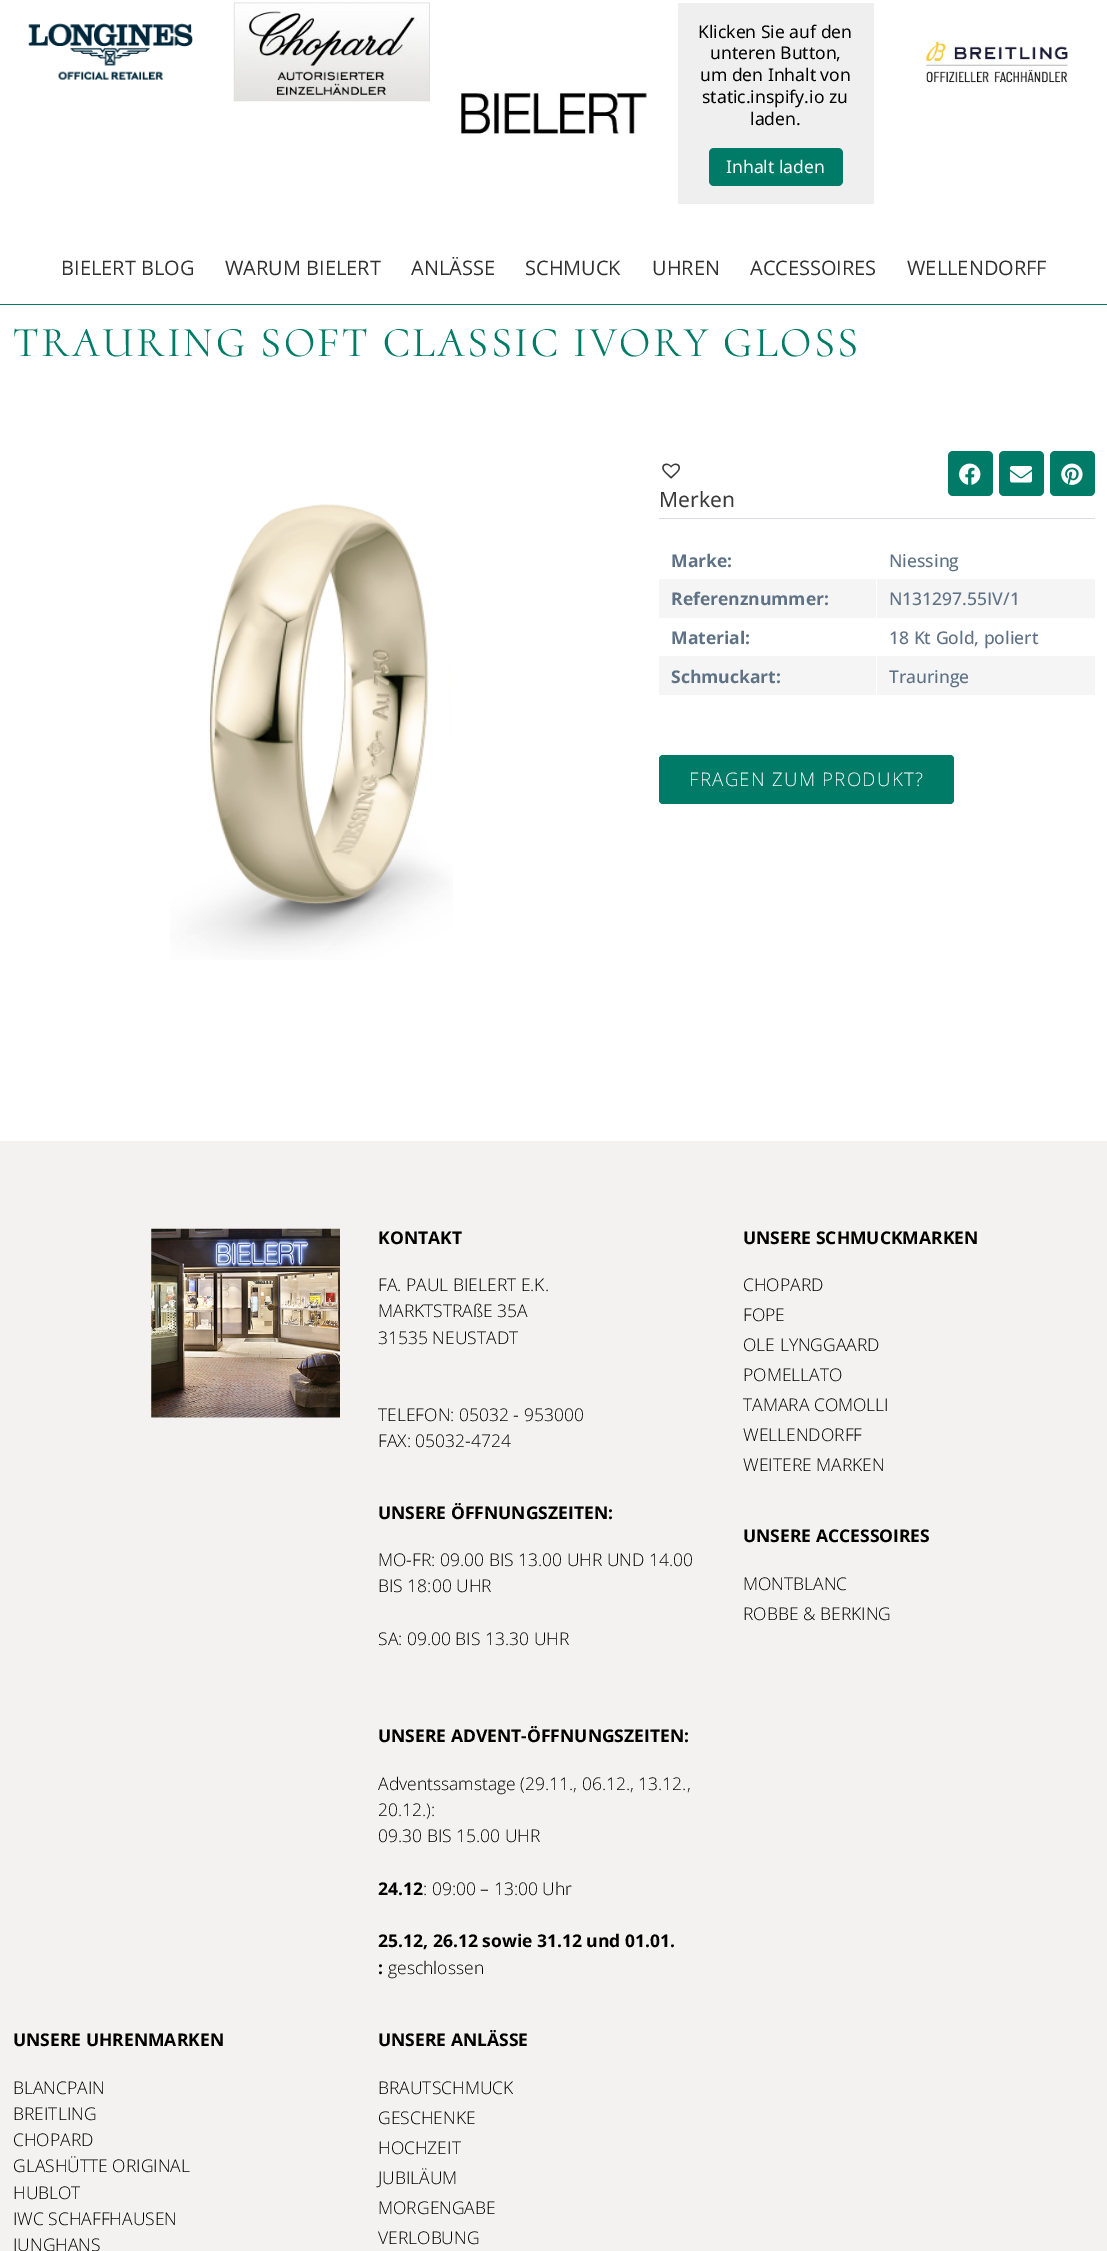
%!PS
<< /PageSize [1107 2251] >> setpagedevice
/rgb { dup -16 bitshift 255 div exch dup -8 bitshift 255 and 255 div exch 255 and 255 div setrgbcolor } def
/font { [ exch dup neg 0 0 3 -1 roll 0 0 ] selectfont } def
/text { moveto show } def
/roundrect { 5 dict begin { /r /h /w /y /x } { exch def } forall
  x r add y moveto x w add y 2 copy h add r arct x w add y h add x 1 index r arct
  x y h add x y r arct x y 2 copy exch w add exch r arct closepath end } def
/picture { 5 dict begin { /h /w /y /x /name } { exch def } forall
  gsave x y translate w h scale
  w h 8 [w 0 0 h 0 0] name (r) file false 3 colorimage grestore end } def
0 2251 translate 1 -1 scale
4 setmiterlimit
/s1 { /NotoSans-Regular 17.5 font 16#000000 rgb } def
/s2 { /NotoSans-Regular 17.5 font 16#FFFFFF rgb } def
/s3 { /OpenSans-Regular 20 font 16#313131 rgb } def
/s4 { /NotoSans-Regular 21 font 16#3A3A3A rgb } def
/s5 { /OpenSans-Bold 17.5 font 16#5F7285 rgb } def
/s6 { /OpenSans-Medium 17.5 font 16#5F7285 rgb } def
/s7 { /OpenSans-Bold 17.5 font 16#000000 rgb } def
/s8 { /OpenSans-Light 17.5 font 16#000000 rgb } def
16#FFFFFF rgb
0 0 1107 2251 rectfill
(pic1.raw) 28 23 165 57 picture
(pic2.raw) 233 2 197 100 picture
16#EFEFEF rgb
678 3 196 201 rectfill
s1
(Klicken Sie auf den) 698 38 text
(unteren Button,) 710 59 text
(um den Inhalt von) 700 81 text
(static.inspify.io zu) 702 103 text
(laden.) 750 125 text
16#007B67 rgb
709 148 134 38 5 roundrect fill
s2
(Inhalt laden) 726 173 text
(pic3.raw) 924 40 145 43 picture
(pic4.raw) 459 91 188 44 picture
16#007B67 rgb
0 304 1107 1 rectfill
s3
(BIELERT BLOG) 61 275 text
(WARUM BIELERT) 225 275 text
(ANLÄSSE) 411 275 text
(SCHMUCK) 525 275 text
(UHREN) 652 275 text
(ACCESSOIRES) 750 275 text
(WELLENDORFF) 907 275 text
/CormorantUpright-Regular 42.5 font
16#007B67 rgb
13 356 moveto 0.5 0 32 2.5 0 (TRAURING SOFT CLASSIC IVORY GLOSS) awidthshow
(pic5.raw) 170 504 283 456 picture
948 451 45 45 5 roundrect fill
(pic6.raw) 959 463 22 22 picture
999 451 45 45 5 roundrect fill
(pic7.raw) 1010 466 22 17 picture
1050 451 45 45 5 roundrect fill
(pic8.raw) 1061 463 22 22 picture
(pic9.raw) 662 463 18 16 picture
s4
(Merken) 659 507 text
16#DADAE5 rgb
659 518 436 1 rectfill
s5
(Marke:) 671 567 text
s6
(Niessing) 889 567 text
16#F5F5F5 rgb
659 579 436 39 rectfill
16#FFFFFF rgb
876 579 1 39 rectfill
s5
(Referenznummer:) 671 605 text
s6
(N131297.55IV/1) 889 605 text
s5
(Material:) 671 644 text
s6
(18 Kt Gold, poliert) 889 644 text
16#F5F5F5 rgb
659 656 436 39 rectfill
16#FFFFFF rgb
876 656 1 39 rectfill
s5
(Schmuckart:) 671 683 text
s6
(Trauringe) 889 683 text
16#007B67 rgb
659 755 295 49 4 roundrect fill
/OpenSans-Light 18.75 font
16#FFFFFF rgb
689 786 moveto 1.25 0 (FRAGEN ZUM PRODUKT?) ashow
16#F3F2F0 rgb
0 1141 1107 1110 rectfill
(pic10.raw) 151 1228 189 190 picture
s7
(KONTAKT) 378 1244 text
s8
(FA. PAUL BIELERT E.K.) 378 1291 text
(MARKTSTRAßE 35A) 378 1317 text
(31535 NEUSTADT) 378 1344 text
(TELEFON: 05032 - 953000) 378 1421 text
(FAX: 05032-4724) 378 1447 text
s7
(UNSERE ÖFFNUNGSZEITEN:) 378 1519 text
s8
(MO-FR: 09.00 BIS 13.00 UHR UND 14.00) 378 1566 text
(BIS 18:00 UHR) 378 1592 text
(SA: 09.00 BIS 13.30 UHR) 378 1645 text
s7
(UNSERE ADVENT-ÖFFNUNGSZEITEN:) 378 1742 text
s8
(Adventssamstage \(29.11., 06.12., 13.12.,) 378 1790 text
(20.12.\):) 378 1816 text
(09.30 BIS 15.00 UHR) 378 1842 text
s7
(24.12) 378 1895 text
s8
(: 09:00 – 13:00 Uhr) 423 1895 text
s7
(25.12, 26.12 sowie 31.12 und 01.01.) 378 1947 text
(:) 378 1974 text
s8
(geschlossen) 388 1974 text
s7
(UNSERE SCHMUCKMARKEN) 743 1244 text
s8
(CHOPARD) 743 1291 text
(FOPE) 743 1321 text
(OLE LYNGGAARD) 743 1351 text
(POMELLATO) 743 1381 text
(TAMARA COMOLLI) 743 1411 text
(WELLENDORFF) 743 1441 text
(WEITERE MARKEN) 743 1471 text
s7
(UNSERE ACCESSOIRES) 743 1542 text
s8
(MONTBLANC) 743 1590 text
(ROBBE & BERKING) 743 1620 text
s7
(UNSERE UHRENMARKEN) 13 2046 text
s8
(BLANCPAIN) 13 2094 text
(BREITLING) 13 2120 text
(CHOPARD) 13 2146 text
(GLASHÜTTE ORIGINAL) 13 2172 text
(HUBLOT) 13 2199 text
(IWC SCHAFFHAUSEN) 13 2225 text
(JUNGHANS) 13 2251 text
s7
(UNSERE ANLÄSSE) 378 2046 text
s8
(BRAUTSCHMUCK) 378 2094 text
(GESCHENKE) 378 2124 text
(HOCHZEIT) 378 2154 text
(JUBILÄUM) 378 2184 text
(MORGENGABE) 378 2214 text
(VERLOBUNG) 378 2244 text
showpage
